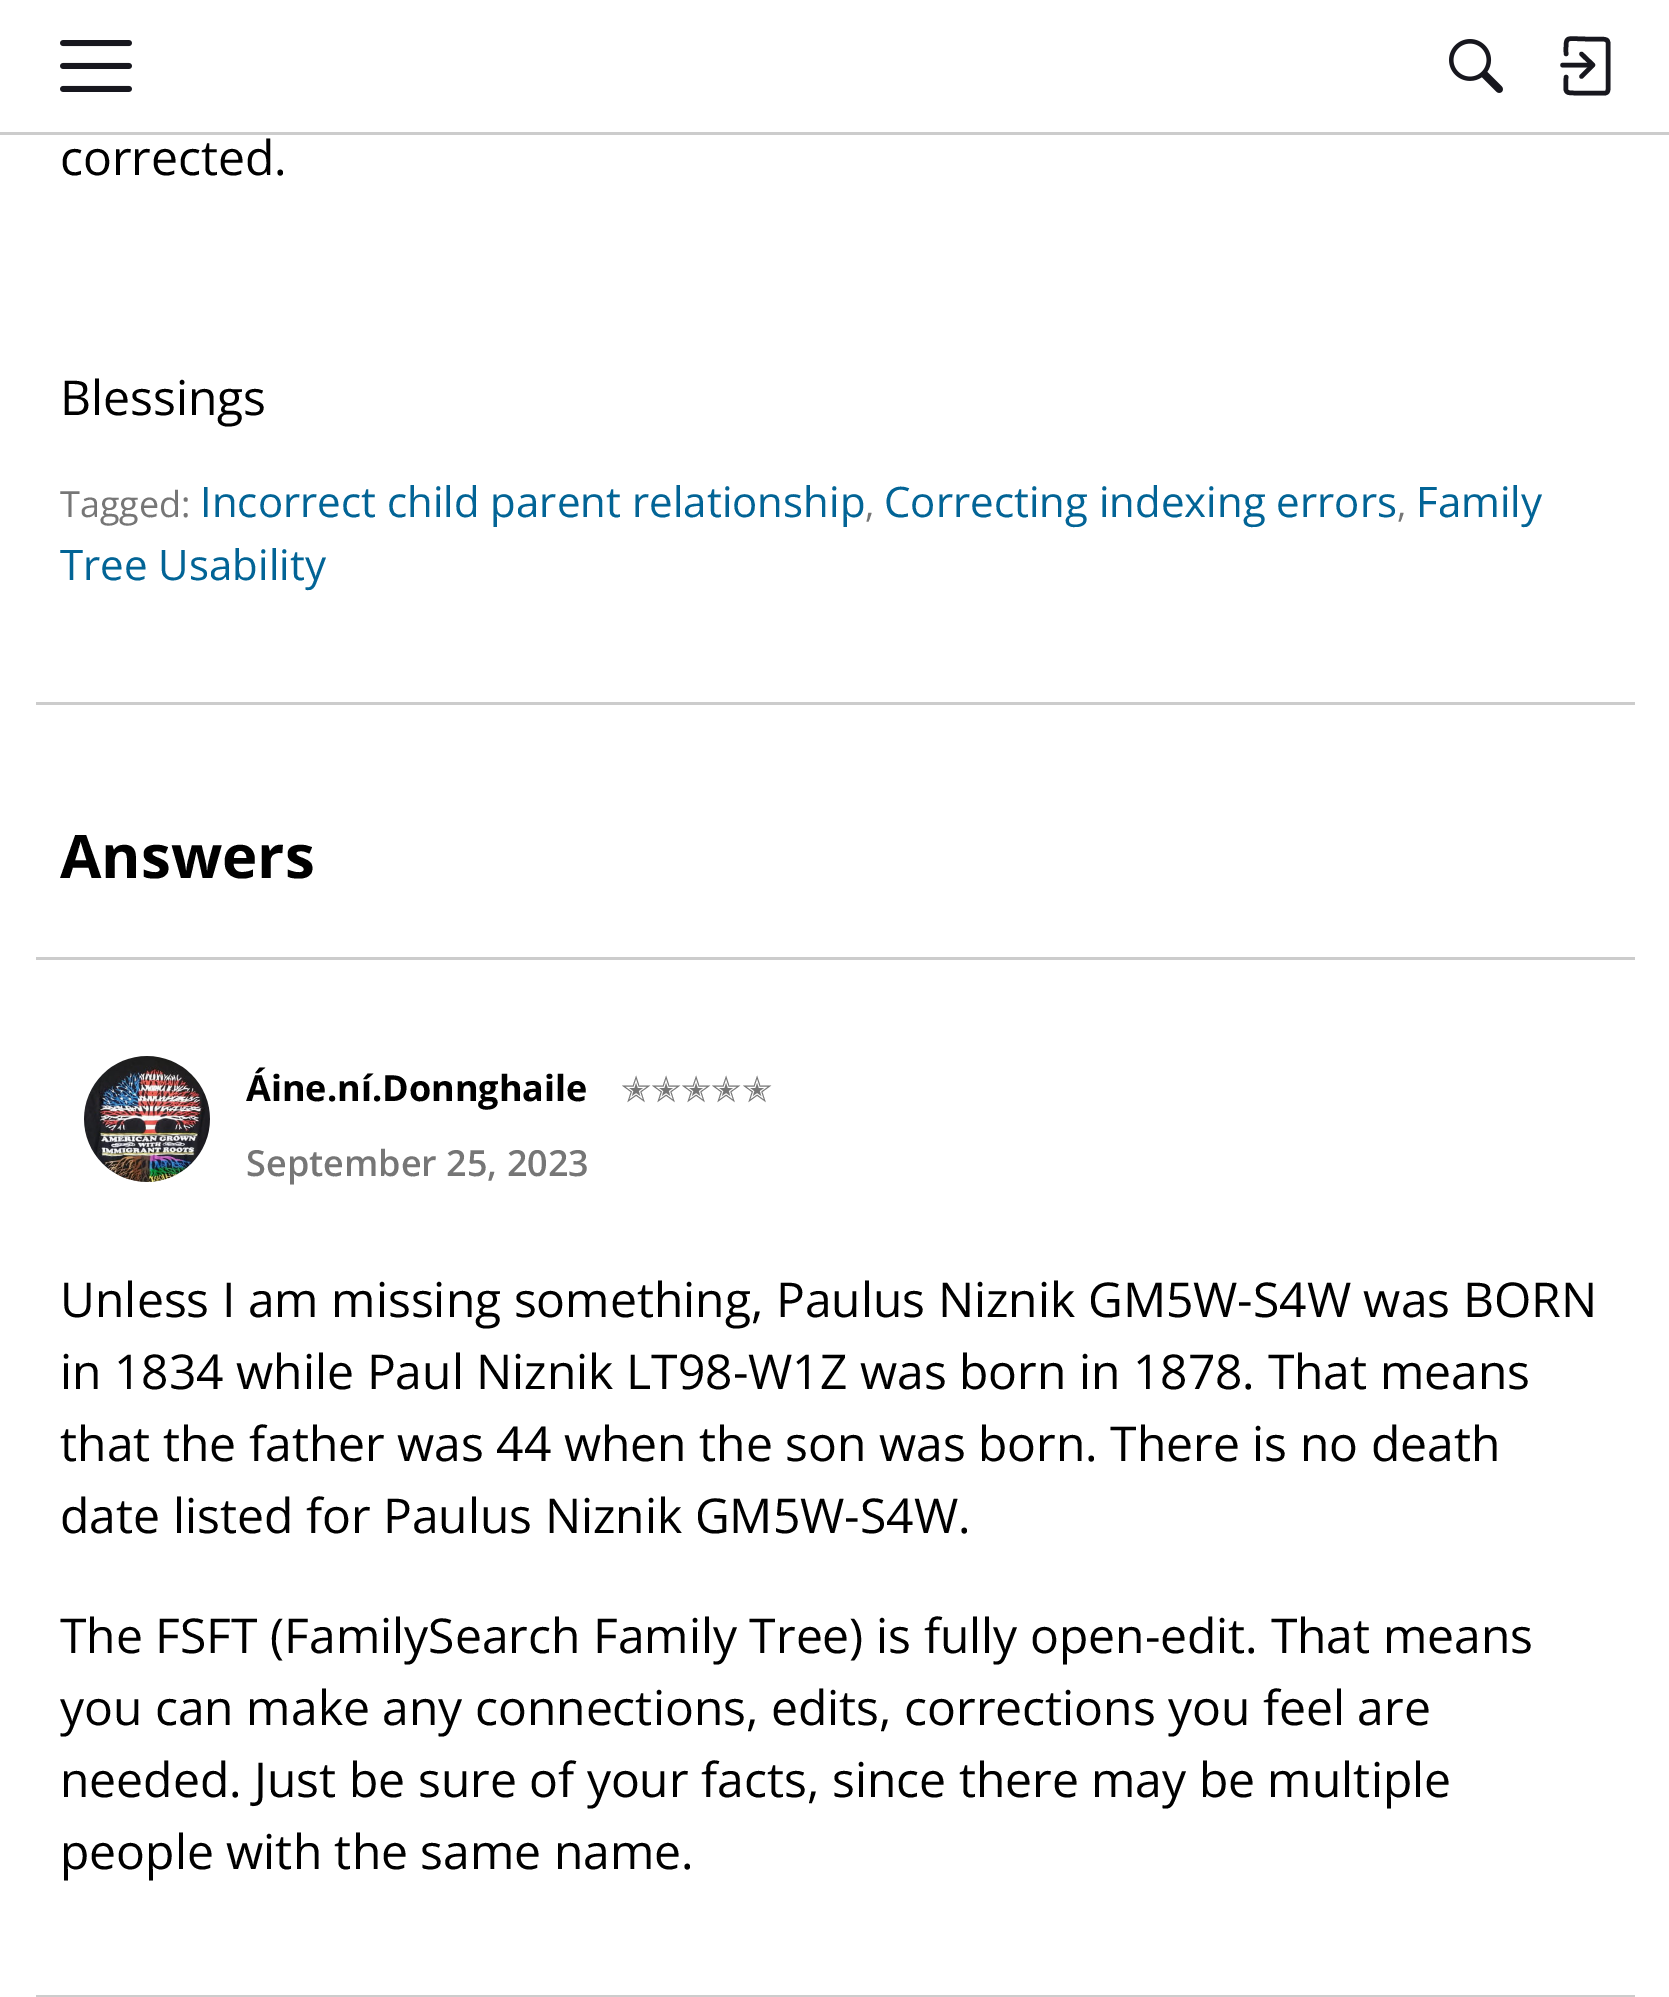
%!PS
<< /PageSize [1669 1997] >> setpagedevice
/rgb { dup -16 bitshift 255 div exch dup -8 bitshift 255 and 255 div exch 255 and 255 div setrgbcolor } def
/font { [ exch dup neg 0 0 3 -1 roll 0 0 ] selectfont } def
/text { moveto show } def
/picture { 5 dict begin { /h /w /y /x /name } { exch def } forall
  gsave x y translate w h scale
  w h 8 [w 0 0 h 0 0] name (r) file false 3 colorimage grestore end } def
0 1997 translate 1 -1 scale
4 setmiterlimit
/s1 { /OpenSans-Regular 48 font 16#000000 rgb } def
/s2 { /OpenSans-Regular 36 font 16#767676 rgb } def
/s3 { /OpenSans-Regular 42 font 16#026496 rgb } def
/s4 { /OpenSans-Bold 60 font 16#000000 rgb } def
/s5 { /OpenSans-Bold 36 font 16#000000 rgb } def
/s6 { /DejaVuSans-Regular 36 font 16#767676 rgb } def
/s7 { /OpenSans-SemiBold 36 font 16#767676 rgb } def
16#FFFFFF rgb
0 0 1669 1997 rectfill
16#CCCCCC rgb
0 132 1669 3 rectfill
(pic1.raw) 60 40 72 52 picture
(pic2.raw) 1449 39 54 54 picture
16#17171E rgb
4.5 setlinewidth
1 setlinecap
1 setlinejoin
1581.5 76.5 moveto 1593 65 lineto 1581.5 54 lineto stroke
0 setlinejoin
1592 65 moveto 1562.5 65 lineto stroke
1 setlinejoin
1566 54 moveto 1566 34.5 1564.5 39 1587 39 curveto 1598.5 39 lineto 1610 39 1608 40 1608 51.5 curveto 1608 89.5 lineto 1608 94.5 1603 93 1599.5 93 curveto 1581.5 93 lineto 1562.5 93 1566 94.5 1566 77 curveto stroke
s1
(corrected.) 60 175 text
(Blessings) 60 415 text
s2
(Tagged:) 60 517 text
s3
(Incorrect child parent relationship) 200 517 text
s2
(,) 865 517 text
s3
(Correcting indexing errors) 884 517 text
s2
(,) 1397 517 text
s3
(Family) 1416 517 text
(Tree Usability) 60 580 text
16#CCCCCC rgb
36 702 1599 3 rectfill
s4
(Answers) 60 878 text
16#CCCCCC rgb
36 957 1599 3 rectfill
(pic3.raw) 84 1056 126 126 picture
s5
(Áine.ní.Donnghaile) 246 1101 text
s6
(✭✭✭✭✭) 621 1102 text
s7
(September 25, 2023) 246 1176 text
s1
(Unless I am missing something, Paulus Niznik GM5W-S4W was BORN) 60 1317 text
(in 1834 while Paul Niznik LT98-W1Z was born in 1878. That means) 60 1389 text
(that the father was 44 when the son was born. There is no death) 60 1461 text
(date listed for Paulus Niznik GM5W-S4W.) 60 1533 text
(The FSFT \(FamilySearch Family Tree\) is fully open-edit. That means) 60 1653 text
(you can make any connections, edits, corrections you feel are) 60 1725 text
(needed. Just be sure of your facts, since there may be multiple) 60 1797 text
(people with the same name.) 60 1869 text
16#CCCCCC rgb
36 1995 1599 2 rectfill
showpage
